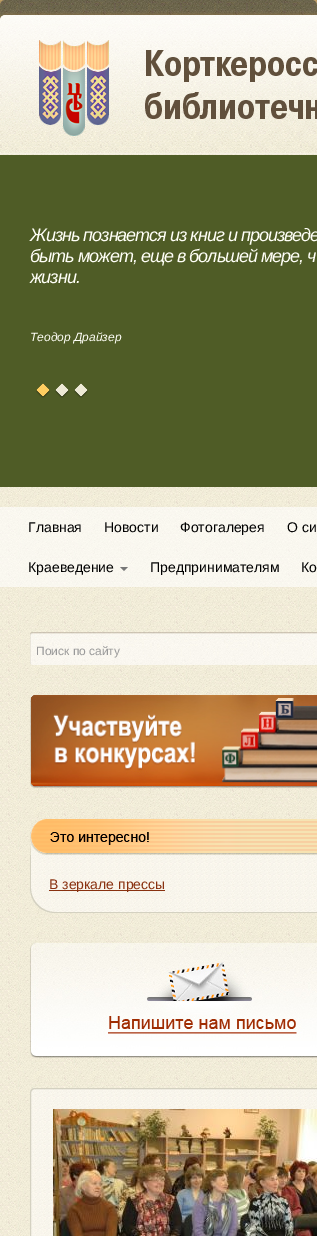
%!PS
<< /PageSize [317 1236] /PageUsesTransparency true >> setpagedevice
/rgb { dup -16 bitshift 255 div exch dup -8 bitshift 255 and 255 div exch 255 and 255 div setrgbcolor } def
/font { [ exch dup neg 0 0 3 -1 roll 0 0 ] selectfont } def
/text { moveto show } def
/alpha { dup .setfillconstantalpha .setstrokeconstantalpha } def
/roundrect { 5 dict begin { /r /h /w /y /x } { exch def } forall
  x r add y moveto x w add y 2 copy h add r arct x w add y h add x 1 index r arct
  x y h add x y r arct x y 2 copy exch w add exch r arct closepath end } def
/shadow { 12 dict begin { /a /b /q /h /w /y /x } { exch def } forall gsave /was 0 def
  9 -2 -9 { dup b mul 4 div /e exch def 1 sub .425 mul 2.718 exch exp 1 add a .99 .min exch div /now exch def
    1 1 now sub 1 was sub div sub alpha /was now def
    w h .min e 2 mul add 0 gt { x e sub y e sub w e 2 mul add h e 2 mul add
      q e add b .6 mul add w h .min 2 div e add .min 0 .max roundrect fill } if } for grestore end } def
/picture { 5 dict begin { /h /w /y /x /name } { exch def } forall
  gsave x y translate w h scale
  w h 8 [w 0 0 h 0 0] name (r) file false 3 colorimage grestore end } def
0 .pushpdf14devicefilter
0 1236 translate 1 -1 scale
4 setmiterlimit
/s1 { /LiberationSans-Italic 12 font 16#FFFFF7 rgb } def
/s2 { /LiberationSans-Regular 14 font 16#000000 rgb } def
/s3 { /LiberationSans-Regular 12 font 16#999999 rgb } def
/s4 { /LiberationSans-Regular 14 font 16#89310F rgb } def
16#FFFFFF rgb
0 0 317 1236 rectfill
(pic1.raw) 0 0 317 5 picture
(pic2.raw) 0 0 317 20 picture
16#927447 rgb
0 15 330 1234 5 2.5 1 shadow
(pic3.raw) 0 15 317 1221 picture
(pic4.raw) 0 15 317 139 picture
(pic5.raw) 39 40 278 96 picture
16#4F5C26 rgb
0 155 317 332 rectfill
/LiberationSans-Italic 18 font
16#FFFFF7 rgb
30 241 moveto -1 0 (Жизнь познается из книг и произведе) ashow
30 262 moveto -1 0 (быть может, еще в большей мере, ч) ashow
30 283 moveto -1 0 (жизни.) ashow
s1
(Теодор Драйзер) 30 341 text
(pic6.raw) 36 383 14 15 picture
(pic7.raw) 55 383 14 15 picture
(pic7.raw) 74 383 14 15 picture
0.6 alpha
16#FFFFFF rgb
0 507 317 80 rectfill
1 alpha
s2
(Главная) 28 532 text
(Новости) 104 532 text
(Фотогалерея) 180 532 text
(О си) 287 532 text
(Краеведение) 28 572 text
16#777777 rgb
120 567 moveto 128 567 lineto 124 571 lineto closepath fill
s2
(Предпринимателям) 150 572 text
(Ко) 301 572 text
(pic8.raw) 30 632 287 33 picture
s3
(Поиск по сайту) 36 655 text
(pic9.raw) 30 695 287 94 picture
(pic10.raw) 30 819 287 36 picture
(pic11.raw) 30 855 287 58 picture
16#D4D1C1 rgb
30 855 moveto 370 855 lineto 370 908 lineto 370 911 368 913 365 913 curveto 55 913 lineto 41 913 30 902 30 888 curveto closepath 31 855 moveto 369 855 lineto 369 908 lineto 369 910 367 912 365 912 curveto 55 912 lineto 42 912 31 901 31 888 curveto closepath eofill
16#89310F rgb
49 890 116 1 rectfill
s4
(В зеркале прессы) 49 889 text
(pic12.raw) 30 943 287 115 picture
(pic13.raw) 30 1088 287 148 picture
16#D4D1C1 rgb
30.5 1088.5 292 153 4.5 roundrect stroke
(pic14.raw) 53 1109 264 127 picture
.poppdf14devicefilter showpage
